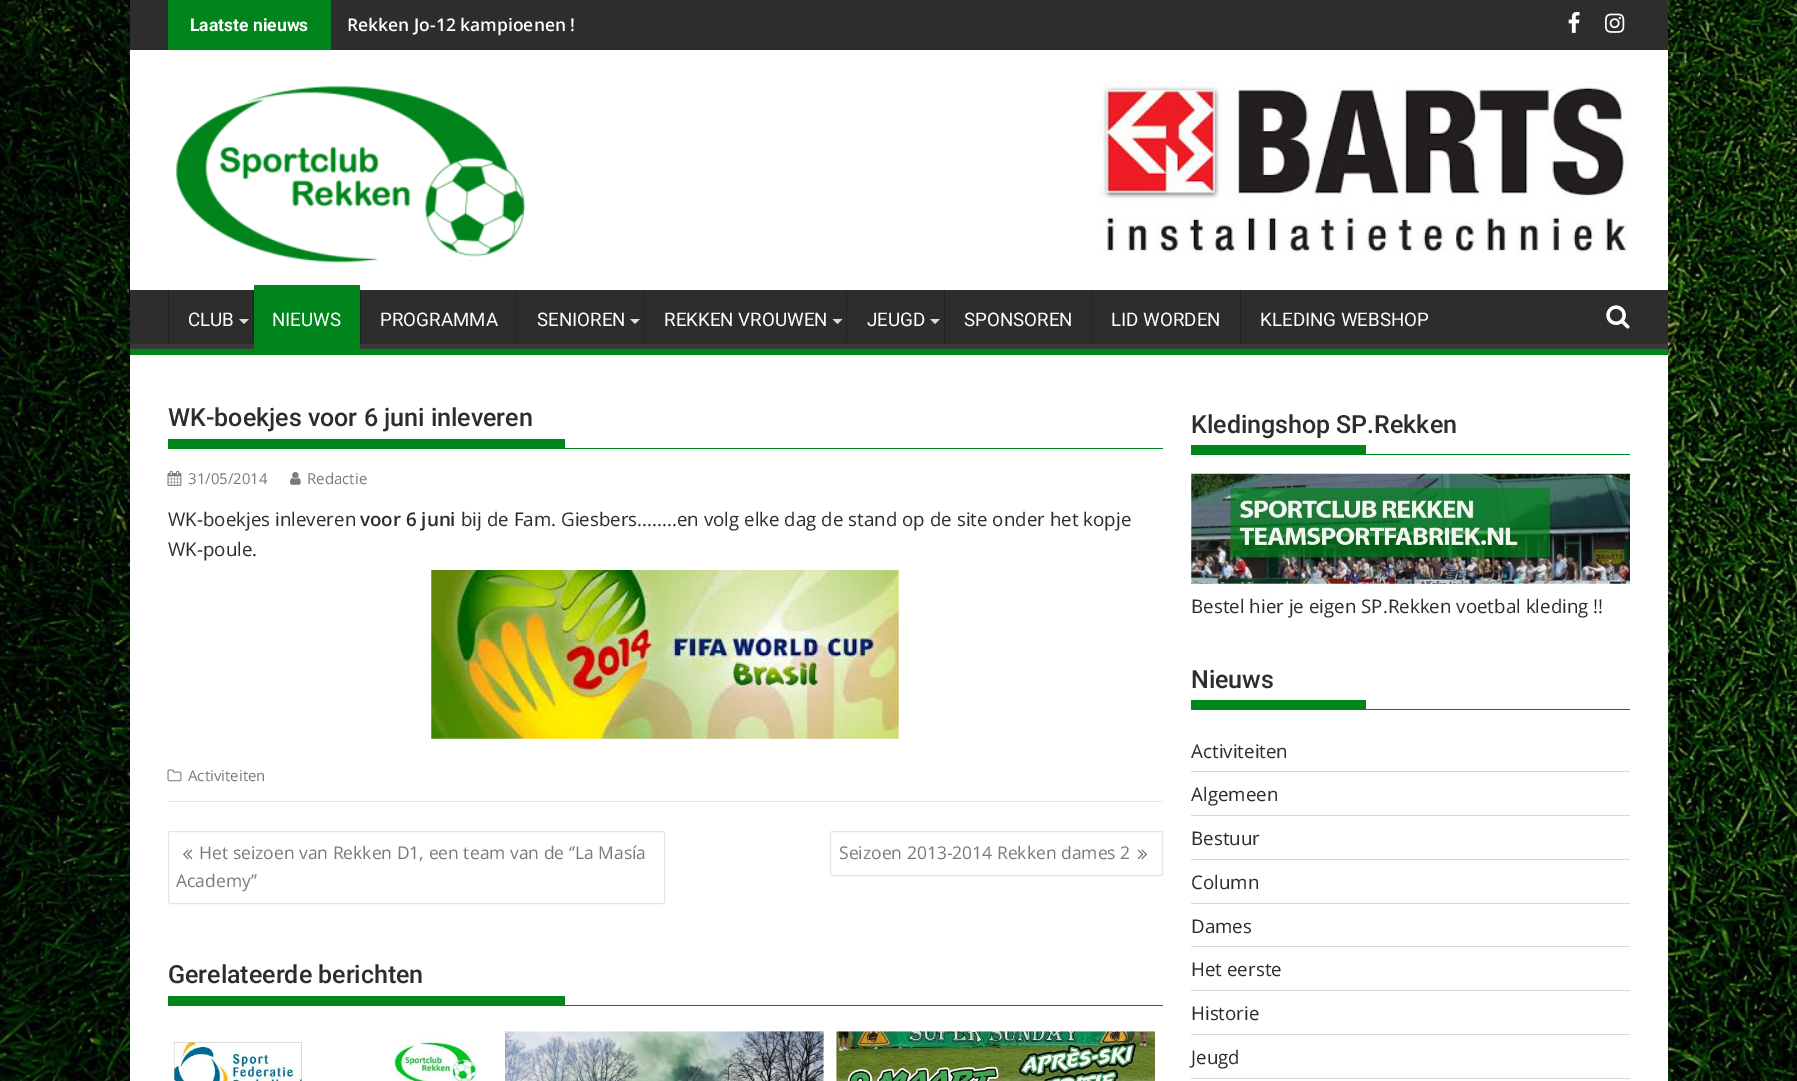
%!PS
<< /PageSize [1797 1081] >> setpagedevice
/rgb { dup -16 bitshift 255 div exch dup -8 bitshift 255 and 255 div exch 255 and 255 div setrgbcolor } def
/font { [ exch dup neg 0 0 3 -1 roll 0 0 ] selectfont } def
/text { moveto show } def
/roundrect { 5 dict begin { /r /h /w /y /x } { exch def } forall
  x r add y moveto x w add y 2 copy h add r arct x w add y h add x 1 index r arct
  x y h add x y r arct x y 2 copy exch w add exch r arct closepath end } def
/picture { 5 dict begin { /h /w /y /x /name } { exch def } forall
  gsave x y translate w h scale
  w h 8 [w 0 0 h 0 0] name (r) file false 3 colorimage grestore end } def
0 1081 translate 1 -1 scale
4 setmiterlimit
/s1 { /Roboto-Bold 17.5 font 16#FFFFFF rgb } def
/s2 { /OpenSans-SemiBold 17.5 font 16#FFFFFF rgb } def
/s3 { /Roboto-Regular 18.75 font 16#FFFFFF rgb } def
/s4 { /Roboto-Medium 25 font 16#2D2D2D rgb } def
/s5 { /OpenSans-Regular 15 font 16#7A7A7A rgb } def
/s6 { /OpenSans-Regular 18.75 font 16#2D2D2D rgb } def
/s7 { /OpenSans-SemiBold 18.75 font 16#2D2D2D rgb } def
/s8 { /OpenSans-Regular 17.5 font 16#7A7A7A rgb } def
16#FFFFFF rgb
0 0 1797 1081 rectfill
(pic1.raw) 0 0 1797 1081 picture
130 50 1538 1031 rectfill
16#2D2D2D rgb
130 0 1538 50 rectfill
16#00841C rgb
168 0 163 50 rectfill
s1
(Laatste nieuws) 190 31 text
s2
(Rekken Jo-12 kampioenen !) 347 31 text
(pic2.raw) 1568 12 12 21 picture
(pic3.raw) 1605 13 20 20 picture
(pic4.raw) 176 86 350 177 picture
(pic5.raw) 1097 81 531 172 picture
16#2D2D2D rgb
130 290 1538 54 rectfill
gsave
130 290 1538 59 rectclip
16#393939 rgb
6 166 moveto 1791 166 lineto 1791 472 lineto 6 472 lineto closepath 129 282 moveto 1666 282 lineto 1667 282 1668 283 1668 284 curveto 1668 342 lineto 1668 343 1667 344 1666 344 curveto 129 344 lineto 128 344 128 343 128 342 curveto 128 284 lineto 128 283 128 282 129 282 curveto closepath eofill
grestore
16#00841C rgb
130 349 1538 6 rectfill
16#222222 rgb
168 290 1 53 rectfill
s3
(CLUB) 188 326 text
16#DDDDDD rgb
239 319 moveto 249 319 lineto 244 324 lineto closepath fill
16#222222 rgb
253 290 1 53 rectfill
16#00841C rgb
254 285 106 64 rectfill
s3
(NIEUWS) 272 326 text
16#222222 rgb
360 290 1 53 rectfill
s3
(PROGRAMMA) 380 326 text
16#222222 rgb
516 290 1 53 rectfill
s3
(SENIOREN) 537 326 text
16#DDDDDD rgb
630 319 moveto 640 319 lineto 635 324 lineto closepath fill
16#222222 rgb
644 290 1 53 rectfill
s3
(REKKEN VROUWEN) 664 326 text
16#DDDDDD rgb
832.5 319 moveto 842.5 319 lineto 837.5 324 lineto closepath fill
16#222222 rgb
846 290 1 53 rectfill
s3
(JEUGD) 867 326 text
16#DDDDDD rgb
930 319 moveto 940 319 lineto 935 324 lineto closepath fill
16#222222 rgb
944 290 1 53 rectfill
s3
(SPONSOREN) 964 326 text
16#222222 rgb
1091 290 1 53 rectfill
s3
(LID WORDEN) 1111 326 text
16#222222 rgb
1240 290 1 53 rectfill
s3
(KLEDING WEBSHOP) 1260 326 text
(pic6.raw) 1606 305 24 24 picture
16#E5E5E5 rgb
168 801 995 1 rectfill
16#00841C rgb
168 448 995 1 rectfill
s4
(WK-boekjes voor 6 juni inleveren) 168 426 text
16#00841C rgb
168 439 397 9 rectfill
(pic7.raw) 167 470 15 16 picture
s5
(31/05/2014) 188 484 text
(pic8.raw) 290 472 11 13 picture
(Redactie) 307 484 text
s6
(WK-boekjes inleveren) 168 526 text
s7
(voor 6 juni) 360 526 text
s6
(bij de Fam. Giesbers........en volg elke dag de stand op de site onder het kopje) 461 526 text
(WK-poule.) 168 556 text
(pic9.raw) 431 570 468 169 picture
(pic10.raw) 167 769 15 13 picture
s5
(Activiteiten) 188 781 text
16#E5E5E5 rgb
168.5 831.5 496 72 2 roundrect stroke
(pic11.raw) 183 849 10 11 picture
s8
(Het seizoen van Rekken D1, een team van de ‘’La Masía) 199 859 text
(Academy’’) 176 887 text
16#E5E5E5 rgb
830.5 831.5 332 44 2 roundrect stroke
s8
(Seizoen 2013-2014 Rekken dames 2) 839 859 text
(pic12.raw) 1137 849 10 11 picture
16#00841C rgb
168 1005 995 1 rectfill
s4
(Gerelateerde berichten) 168 983 text
16#00841C rgb
168 996 397 9 rectfill
(pic13.raw) 173 1035 304 46 picture
(pic14.raw) 505 1031 319 50 picture
(pic15.raw) 836 1031 319 50 picture
1191 454 439 1 rectfill
s4
(Kledingshop SP.Rekken) 1191 433 text
16#00841C rgb
1191 445 175 9 rectfill
(pic16.raw) 1191 473 439 111 picture
s6
(Bestel hier je eigen SP.Rekken voetbal kleding !!) 1191 613 text
16#00841C rgb
1191 709 439 1 rectfill
s4
(Nieuws) 1191 688 text
16#00841C rgb
1191 700 175 9 rectfill
16#D7D7D7 rgb
1191 771 439 1 rectfill
s6
(Activiteiten) 1191 758 text
16#D7D7D7 rgb
1191 815 439 1 rectfill
s6
(Algemeen) 1191 801 text
16#D7D7D7 rgb
1191 859 439 1 rectfill
s6
(Bestuur) 1191 845 text
16#D7D7D7 rgb
1191 903 439 1 rectfill
s6
(Column) 1191 889 text
16#D7D7D7 rgb
1191 946 439 1 rectfill
s6
(Dames) 1191 933 text
16#D7D7D7 rgb
1191 990 439 1 rectfill
s6
(Het eerste) 1191 976 text
16#D7D7D7 rgb
1191 1034 439 1 rectfill
s6
(Historie) 1191 1020 text
16#D7D7D7 rgb
1191 1078 439 1 rectfill
s6
(Jeugd) 1191 1064 text
showpage
